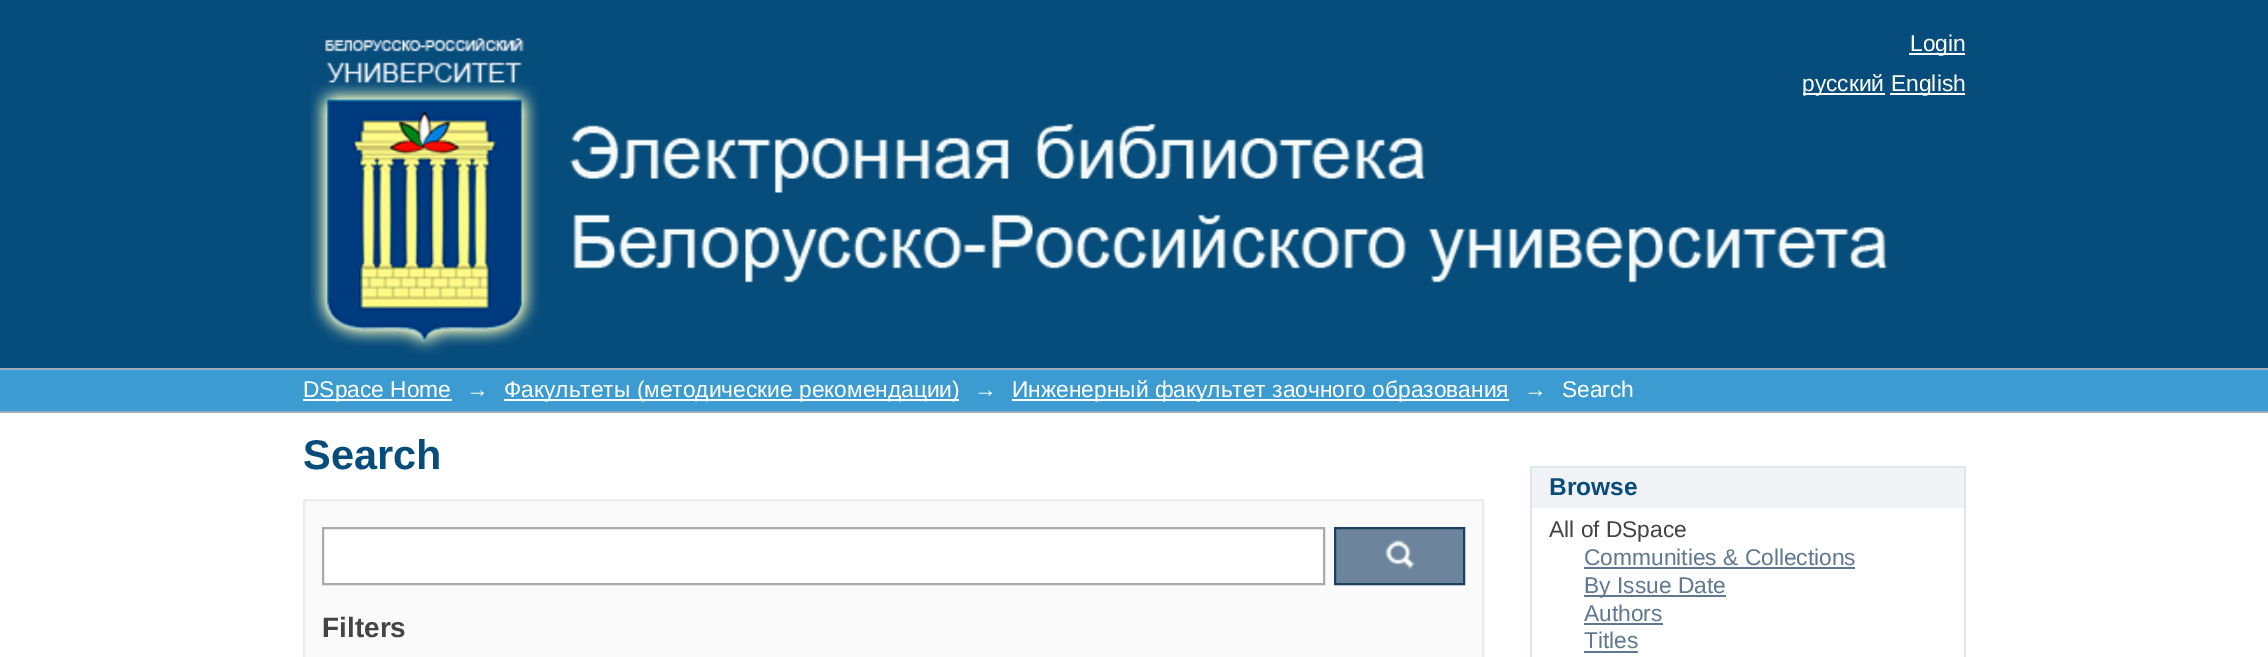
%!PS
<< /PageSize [2268 657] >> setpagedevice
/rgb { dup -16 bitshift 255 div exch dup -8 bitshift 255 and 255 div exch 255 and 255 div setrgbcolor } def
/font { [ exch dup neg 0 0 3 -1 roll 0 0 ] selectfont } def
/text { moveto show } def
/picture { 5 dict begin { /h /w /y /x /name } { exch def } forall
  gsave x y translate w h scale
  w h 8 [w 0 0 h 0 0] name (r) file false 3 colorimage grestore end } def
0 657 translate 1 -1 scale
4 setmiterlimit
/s1 { /LiberationSans-Regular 22.75 font 16#FFFFFF rgb } def
/s2 { /LiberationSans-Bold 41.5 font 16#074D7C rgb } def
/s3 { /LiberationSans-Bold 28 font 16#444444 rgb } def
/s4 { /LiberationSans-Bold 24.5 font 16#074D7C rgb } def
/s5 { /LiberationSans-Regular 22.75 font 16#444444 rgb } def
/s6 { /LiberationSans-Regular 22.75 font 16#607890 rgb } def
16#FFFFFF rgb
0 0 2268 657 rectfill
16#074D7C rgb
0 0 2268 368 rectfill
(pic1.raw) 310 38 1577 316 picture
16#FFFFFF rgb
1909 53 56 2 rectfill
s1
(Login) 1910 51 text
1803 93 82 2 rectfill
(русский) 1802 91 text
1890 93 75 2 rectfill
(English) 1891 91 text
16#3C9CD2 rgb
0 370 2268 41 rectfill
16#9CACBA rgb
0 368 2268 2 rectfill
0 411 2268 2 rectfill
16#FFFFFF rgb
303 399 149 2 rectfill
(DSpace Home) 303 397 text
(→) 466 397 text
504 399 455 2 rectfill
(Факультеты \(методические рекомендации\)) 504 397 text
(→) 974 397 text
1012 399 497 2 rectfill
(Инженерный факультет заочного образования) 1012 397 text
(→) 1524 397 text
(Search) 1562 397 text
s2
(Search) 303 469 text
16#FAFAFA rgb
304 500 moveto 1483 500 lineto 1483 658 lineto 304 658 lineto closepath gsave fill grestore
16#EBEBEB rgb
2 setlinewidth
stroke
16#FFFFFF rgb
323 528 moveto 1324 528 lineto 1324 584 lineto 323 584 lineto closepath gsave fill grestore
16#AAAAAA rgb
stroke
16#6D859C rgb
1336 529 127 54 rectfill
(pic2.raw) 1385 540 30 30 picture
16#1F3F5E rgb
1335 528 129 56 rectstroke
s3
(Filters) 322 637 text
16#F0F2F5 rgb
1532 468 432 40 rectfill
16#D8E8EB rgb
1530 466 435 2 rectfill
1964 466 2 191 rectfill
1530 466 2 191 rectfill
s4
(Browse) 1549 495 text
s5
(All of DSpace) 1549 537 text
s6
(Communities & Collections) 1584 565 text
1584 567 271 2 rectfill
1584 595 142 2 rectfill
(By Issue Date) 1584 593 text
(Authors) 1584 621 text
1584 623 79 2 rectfill
(Titles) 1584 648 text
1584 651 54 2 rectfill
showpage
